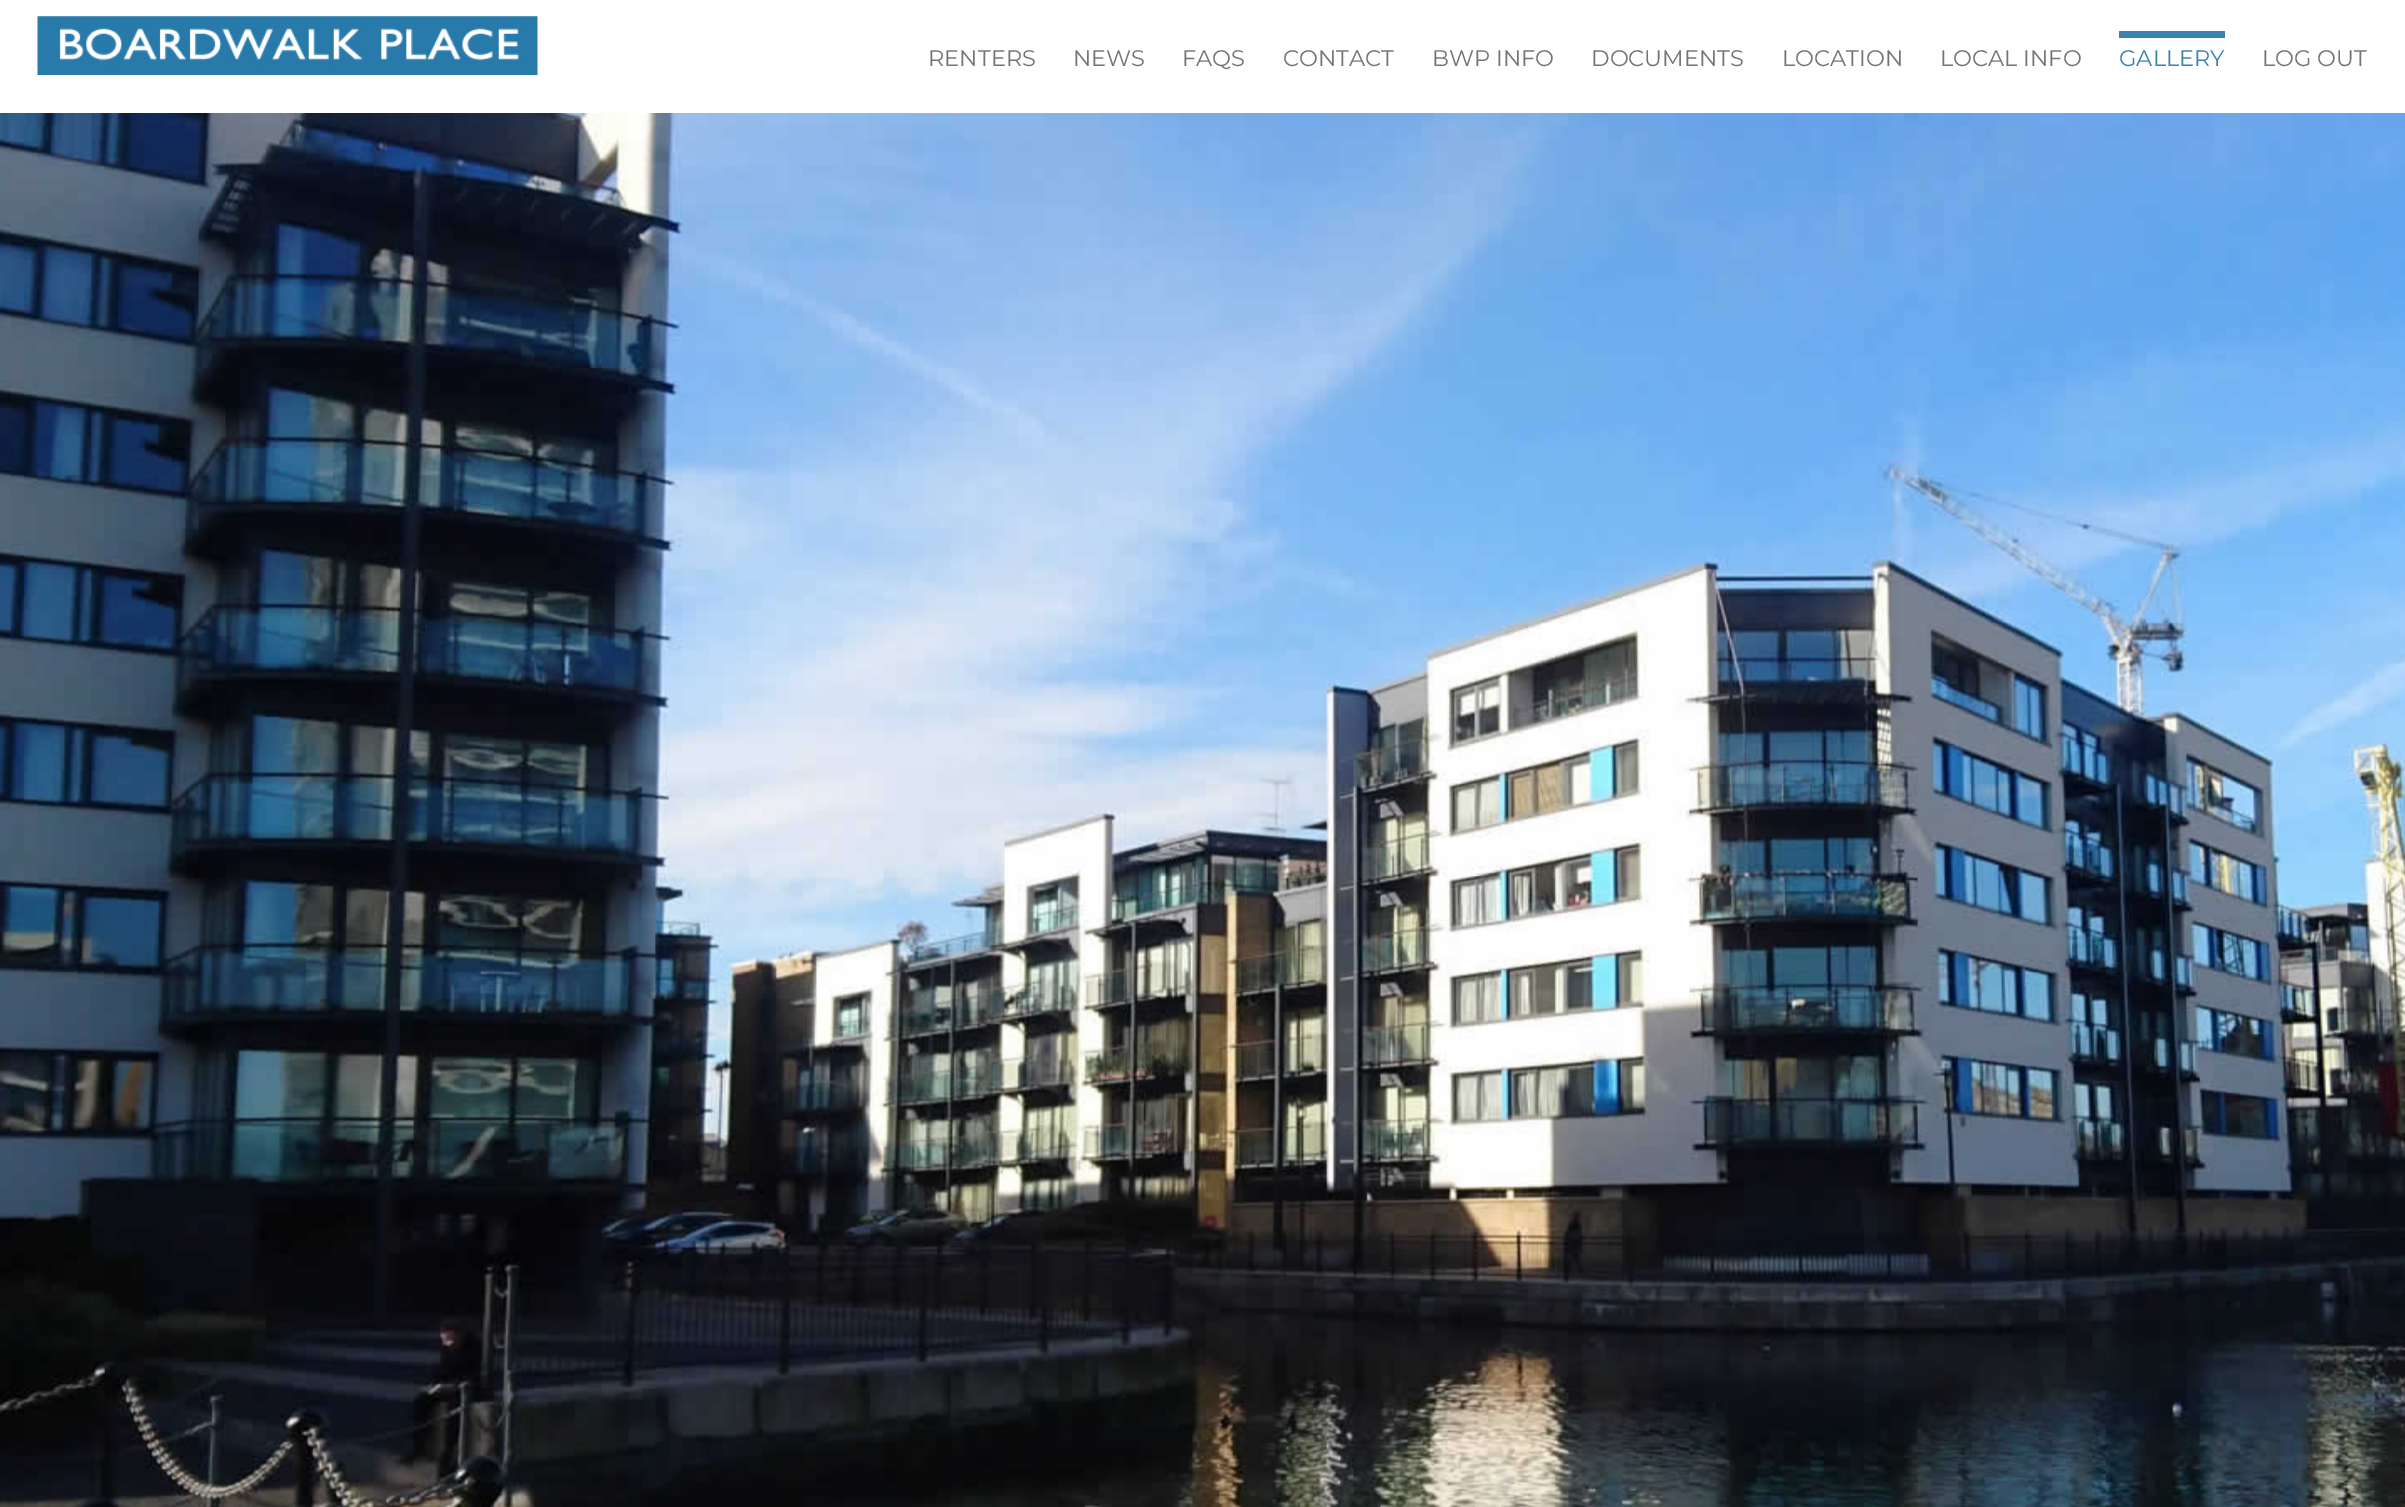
%!PS
<< /PageSize [2405 1507] >> setpagedevice
/rgb { dup -16 bitshift 255 div exch dup -8 bitshift 255 and 255 div exch 255 and 255 div setrgbcolor } def
/font { [ exch dup neg 0 0 3 -1 roll 0 0 ] selectfont } def
/text { moveto show } def
/picture { 5 dict begin { /h /w /y /x /name } { exch def } forall
  gsave x y translate w h scale
  w h 8 [w 0 0 h 0 0] name (r) file false 3 colorimage grestore end } def
0 1507 translate 1 -1 scale
4 setmiterlimit
/s1 { /Montserrat-Thin 22.5 font 16#747474 rgb } def
/s2 { /Montserrat-Thin 22.5 font 16#3A82B2 rgb } def
16#FFFFFF rgb
0 0 2405 1507 rectfill
(pic1.raw) 37 16 501 59 picture
s1
(RENTERS) 928 66 text
(NEWS) 1073 66 text
(FAQS) 1182 66 text
(CONTACT) 1283 66 text
(BWP INFO) 1432 66 text
(DOCUMENTS) 1591 66 text
(LOCATION) 1782 66 text
(LOCAL INFO) 1940 66 text
16#3A82B2 rgb
2119 31 106 7 rectfill
(GALLERY) 2119 66 text
s1
(LOG OUT) 2262 66 text
(pic2.raw) 0 113 2405 1394 picture
showpage
